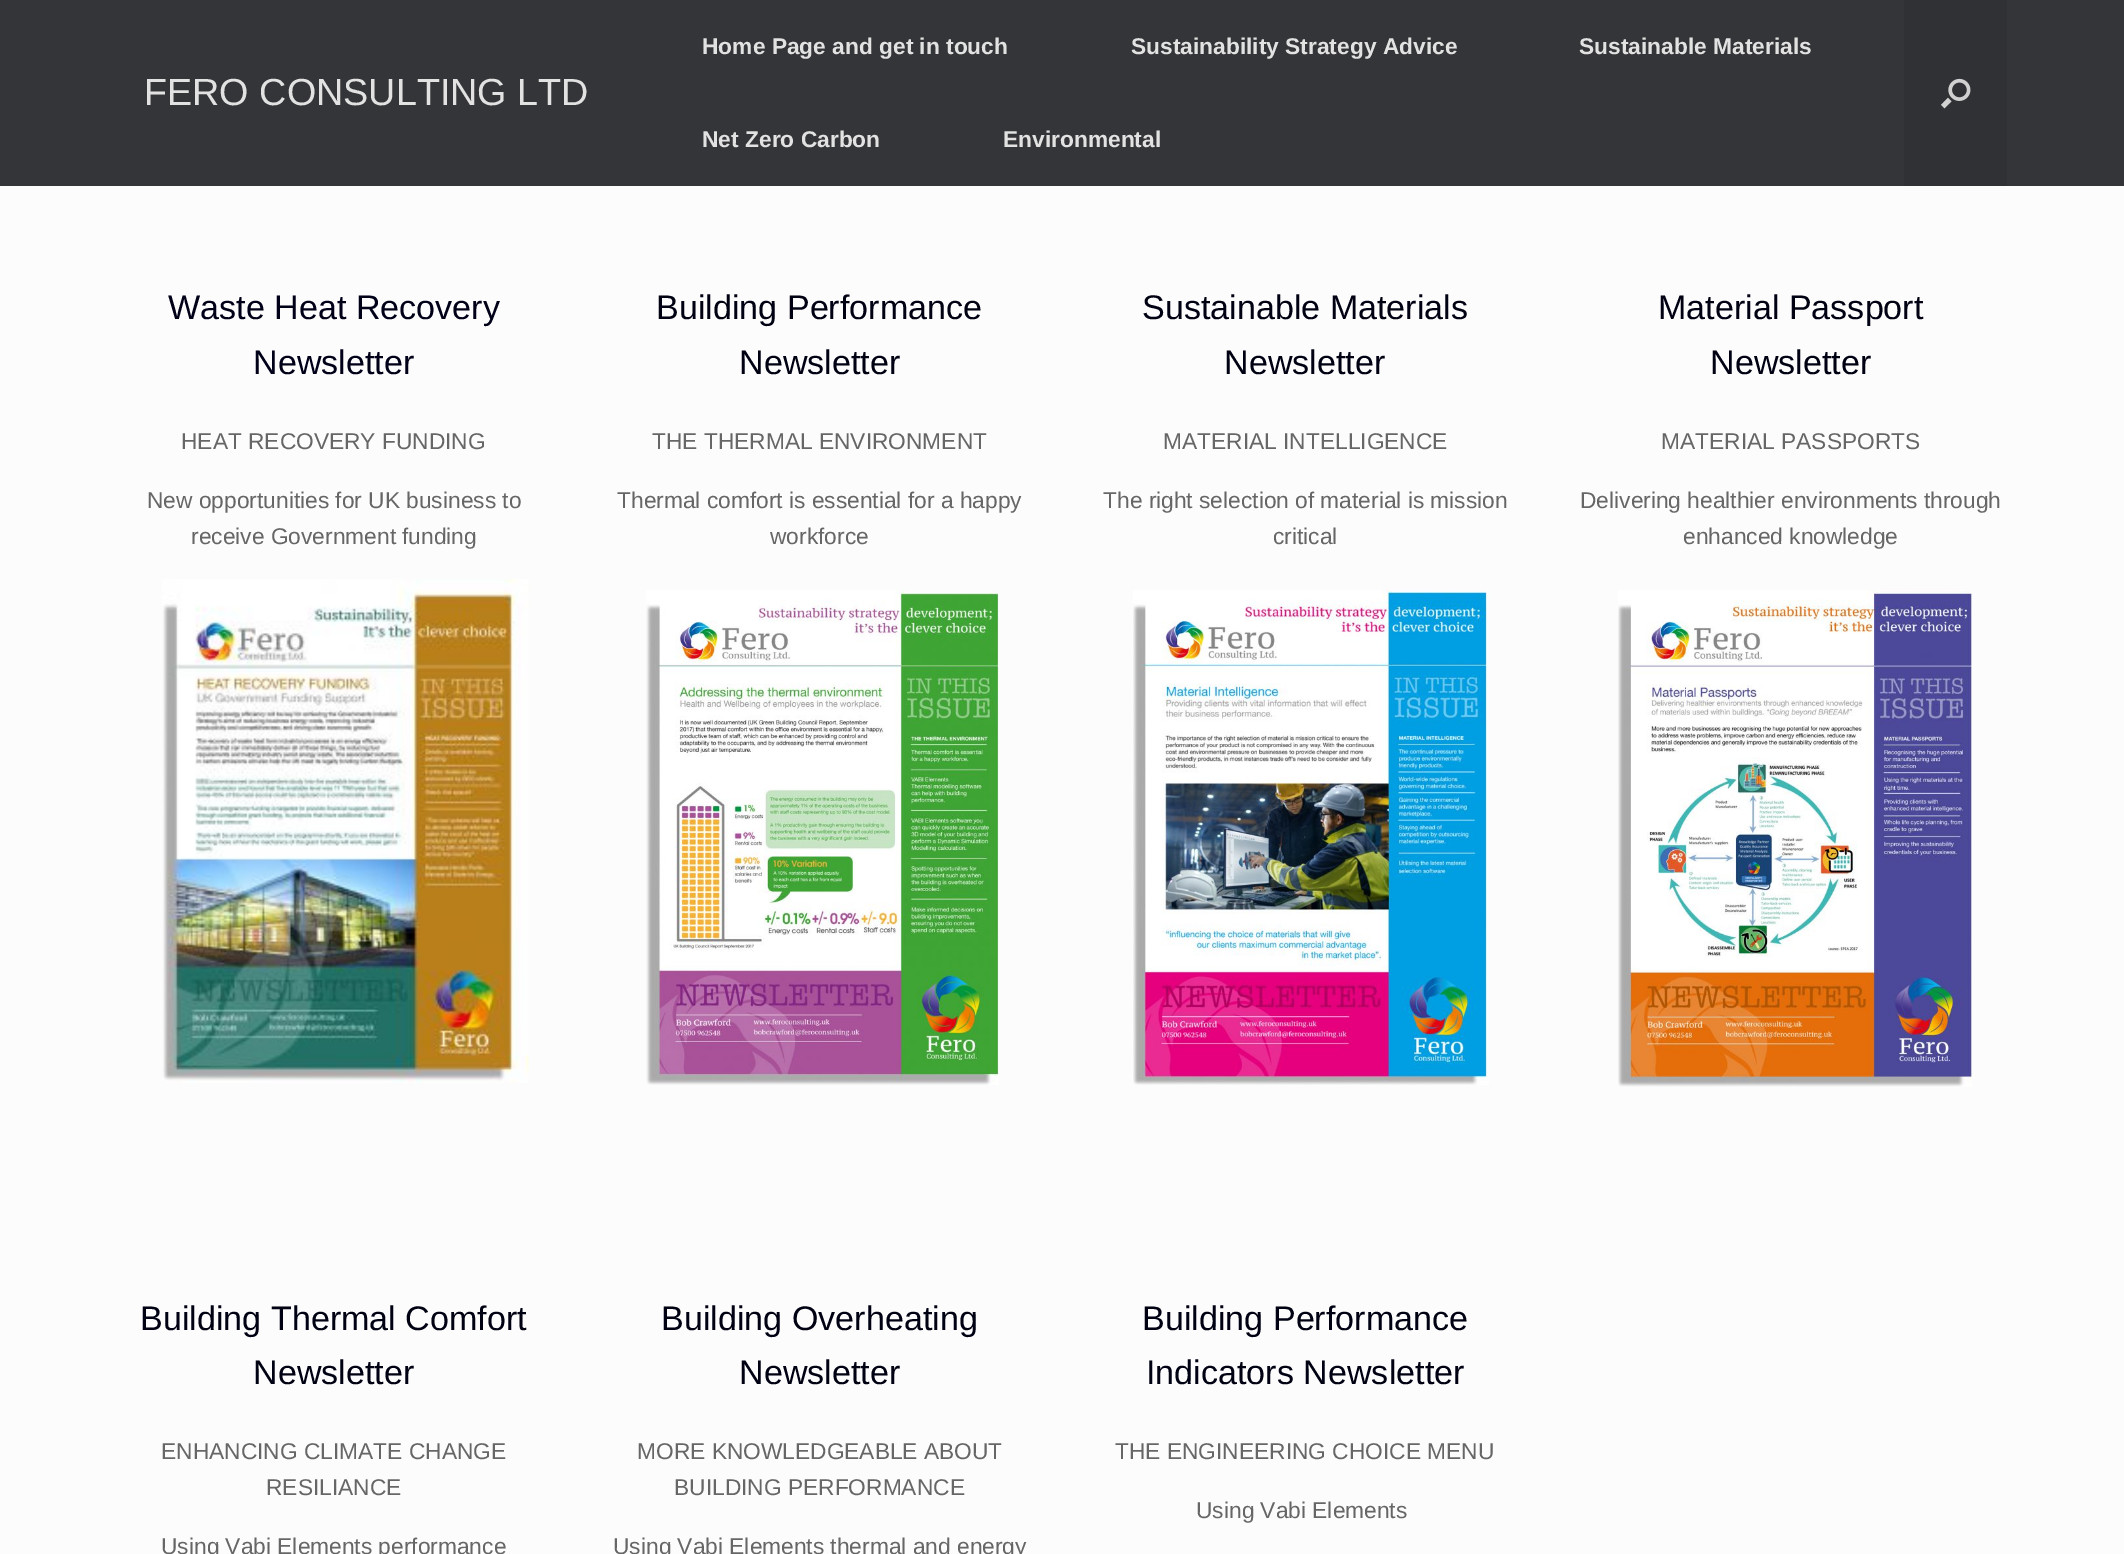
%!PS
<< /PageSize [2124 1554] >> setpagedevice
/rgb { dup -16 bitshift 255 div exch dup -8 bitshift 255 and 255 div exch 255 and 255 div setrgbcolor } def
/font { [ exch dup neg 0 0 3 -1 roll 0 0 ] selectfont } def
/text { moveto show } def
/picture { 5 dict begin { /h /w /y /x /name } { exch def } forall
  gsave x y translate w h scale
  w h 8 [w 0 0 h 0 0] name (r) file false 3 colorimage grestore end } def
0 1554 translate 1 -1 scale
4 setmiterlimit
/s1 { /LiberationSans-Regular 37.75 font 16#E2E2E2 rgb } def
/s2 { /LiberationSans-Bold 22.75 font 16#E2E2E2 rgb } def
/s3 { /LiberationSans-Regular 34.1 font 16#000018 rgb } def
/s4 { /LiberationSans-Regular 22.75 font 16#666666 rgb } def
/s5 { /LiberationSans-Regular 34.1 font 16#000112 rgb } def
16#FCFCFC rgb
0 0 2124 1554 rectfill
16#343538 rgb
0 0 2124 186 rectfill
s1
(FERO CONSULTING LTD) 144 105 text
s2
(Home Page and get in touch) 702 54 text
(Sustainability Strategy Advice) 1131 54 text
(Sustainable Materials) 1579 54 text
(Net Zero Carbon) 702 147 text
(Environmental) 1003 147 text
16#303134 rgb
1904 0 103 186 rectfill
(pic1.raw) 1941 78 30 31 picture
s3
(Waste Heat Recovery) 168 319 text
(Newsletter) 253 374 text
s4
(HEAT RECOVERY FUNDING) 181 449 text
(New opportunities for UK business to) 147 508 text
(receive Government funding) 191 544 text
(pic2.raw) 162 579 367 504 picture
s5
(Building Performance) 656 319 text
(Newsletter) 739 374 text
s4
(THE THERMAL ENVIRONMENT) 652 449 text
(Thermal comfort is essential for a happy) 617 508 text
(workforce) 770 544 text
(pic3.raw) 646 590 353 495 picture
s5
(Sustainable Materials) 1142 319 text
(Newsletter) 1224 374 text
s4
(MATERIAL INTELLIGENCE) 1163 449 text
(The right selection of material is mission) 1103 508 text
(critical) 1273 544 text
(pic4.raw) 1133 590 356 495 picture
s5
(Material Passport) 1658 319 text
(Newsletter) 1710 374 text
s4
(MATERIAL PASSPORTS) 1661 449 text
(Delivering healthier environments through) 1580 508 text
(enhanced knowledge) 1683 544 text
(pic5.raw) 1618 590 354 497 picture
s5
(Building Thermal Comfort) 140 1330 text
(Newsletter) 253 1384 text
s4
(ENHANCING CLIMATE CHANGE) 161 1459 text
(RESILIANCE) 266 1495 text
(Using Vabi Elements performance) 161 1554 text
s5
(Building Overheating) 661 1330 text
(Newsletter) 739 1384 text
s4
(MORE KNOWLEDGEABLE ABOUT) 637 1459 text
(BUILDING PERFORMANCE) 674 1495 text
(Using Vabi Elements thermal and energy) 613 1554 text
s5
(Building Performance) 1142 1330 text
(Indicators Newsletter) 1146 1384 text
s4
(THE ENGINEERING CHOICE MENU) 1115 1459 text
(Using Vabi Elements) 1196 1518 text
showpage
